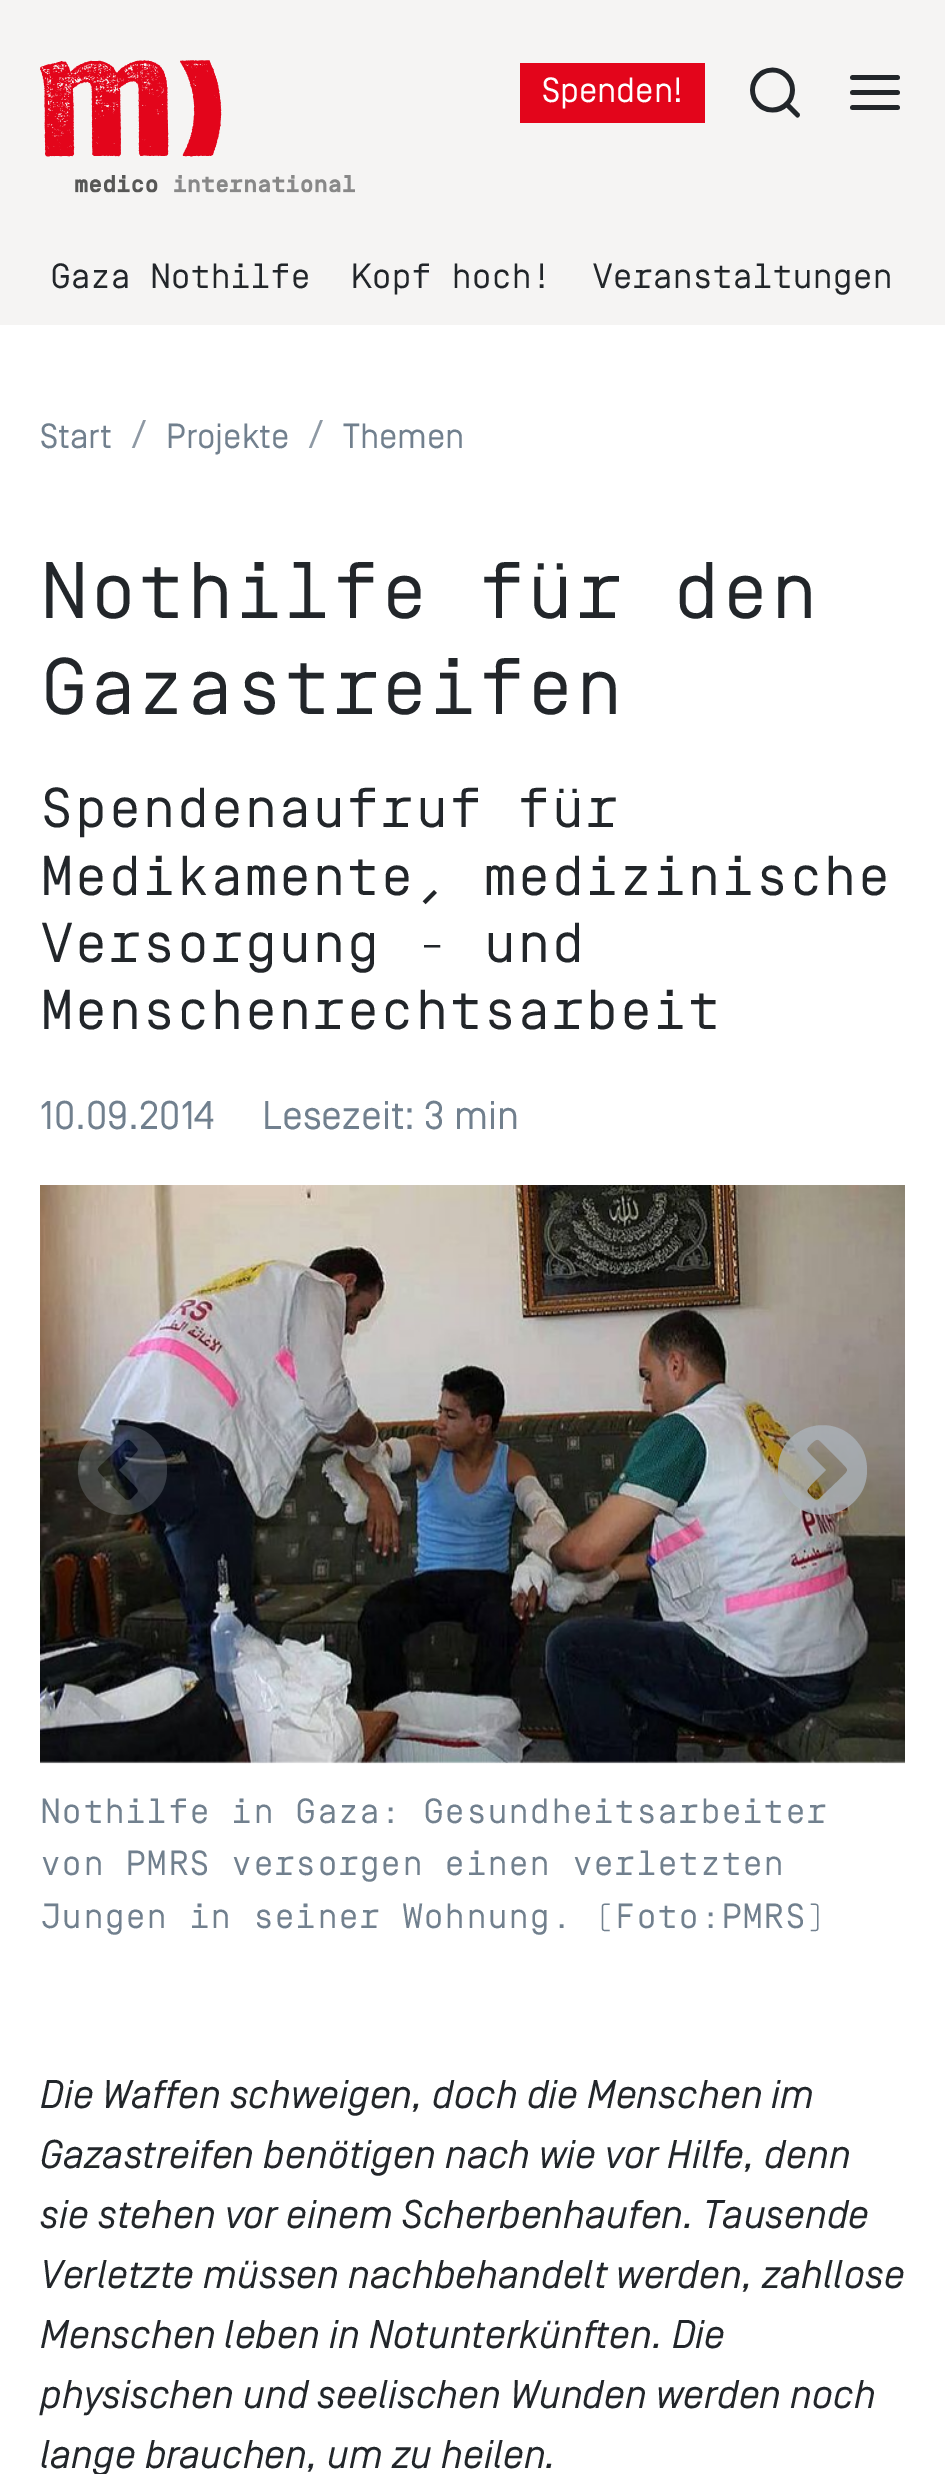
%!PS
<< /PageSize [945 2474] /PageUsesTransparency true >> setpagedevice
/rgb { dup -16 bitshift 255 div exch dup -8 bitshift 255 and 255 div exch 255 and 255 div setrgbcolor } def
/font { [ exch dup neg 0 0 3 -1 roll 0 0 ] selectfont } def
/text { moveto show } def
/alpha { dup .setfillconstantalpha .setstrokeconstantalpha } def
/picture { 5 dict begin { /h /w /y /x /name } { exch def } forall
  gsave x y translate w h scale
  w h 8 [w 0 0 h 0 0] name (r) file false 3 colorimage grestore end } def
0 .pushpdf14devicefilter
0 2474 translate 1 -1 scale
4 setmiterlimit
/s1 { /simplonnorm-Regular 35 font 16#FFFFFF rgb } def
/s2 { /simplonnorm-Regular 35 font 16#71808E rgb } def
/s3 { /simplonnorm-Regular 40 font 16#8E99A4 rgb } def
/s4 { /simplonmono-Regular 80 font 16#22262A rgb } def
/s5 { /simplonmono-Regular 56 font 16#22262A rgb } def
/s6 { /simplonnorm-Regular 40 font 16#71808E rgb } def
/s7 { /simplonmono-Regular 35 font 16#71808E rgb } def
/s8 { /simplonnorm-Italic 40 font 16#22262A rgb } def
16#FFFFFF rgb
0 0 945 2474 rectfill
16#F5F4F3 rgb
0 0 945 325 rectfill
(pic1.raw) 40 60 315 133 picture
16#E3051B rgb
520 63 185 60 rectfill
s1
(Spenden!) 542 102 text
(pic2.raw) 750 67 50 51 picture
(pic3.raw) 850 75 50 35 picture
/simplonmono-Regular 35 font
16#22262A rgb
50 288 moveto -1.25 0 (Gaza Nothilfe) ashow
351 288 moveto -1.25 0 (Kopf hoch!) ashow
592 288 moveto -1.25 0 (Veranstaltungen) ashow
s2
(Start) 40 448 text
s3
(/) 132 448 text
s2
(Projekte) 166 448 text
s3
(/) 309 448 text
s2
(Themen) 343 448 text
s4
(Nothilfe für den) 40 618 text
(Gazastreifen) 40 714 text
s5
(Spendenaufruf für) 40 827 text
(Medikamente, medizinische) 40 895 text
(Versorgung - und) 40 962 text
(Menschenrechtsarbeit) 40 1029 text
s6
(10.09.2014) 40 1129 text
(Lesezeit: 3 min) 262 1129 text
(pic4.raw) 40 1185 865 579 picture
0.25 alpha
16#ADB5BD rgb
131 1499 moveto 127 1503 123 1497 121 1495 curveto 103 1477 lineto 94 1468 97 1469 108 1458 curveto 126 1440 lineto 129 1438 132 1442 134 1444 curveto 135 1446 140 1449 137 1452 curveto 119 1470 lineto 134 1485 lineto 141 1492 138 1492 131 1499 curveto closepath 167 1470 moveto 167 1427 113 1409 87 1443 curveto 81 1450 78 1460 78 1470 curveto 78 1513 132 1531 158 1497 curveto 164 1490 167 1480 167 1470 curveto closepath fill
0.75 alpha
819 1499 moveto 816 1502 813 1498 811 1496 curveto 806 1491 806 1491 811 1485 curveto 826 1470 lineto 811 1455 lineto 805 1449 806 1449 812 1443 curveto 818 1437 819 1440 824 1445 curveto 842 1463 lineto 849 1470 849 1470 842 1477 curveto closepath 867 1470 moveto 867 1460 864 1450 858 1443 curveto 832 1409 778 1427 778 1470 curveto 778 1513 832 1531 858 1497 curveto 864 1490 867 1480 867 1470 curveto closepath fill
1 alpha
s7
(Nothilfe in Gaza: Gesundheitsarbeiter) 40 1823 text
(von PMRS versorgen einen verletzten) 40 1875 text
(Jungen in seiner Wohnung. \(Foto:PMRS\)) 40 1928 text
s8
(Die Waffen schweigen, doch die Menschen im) 40 2108 text
(Gazastreifen benötigen nach wie vor Hilfe, denn) 40 2168 text
(sie stehen vor einem Scherbenhaufen. Tausende) 40 2228 text
(Verletzte müssen nachbehandelt werden, zahllose) 40 2288 text
(Menschen leben in Notunterkünften. Die) 40 2348 text
(physischen und seelischen Wunden werden noch) 40 2408 text
(lange brauchen, um zu heilen.) 40 2468 text
.poppdf14devicefilter showpage
